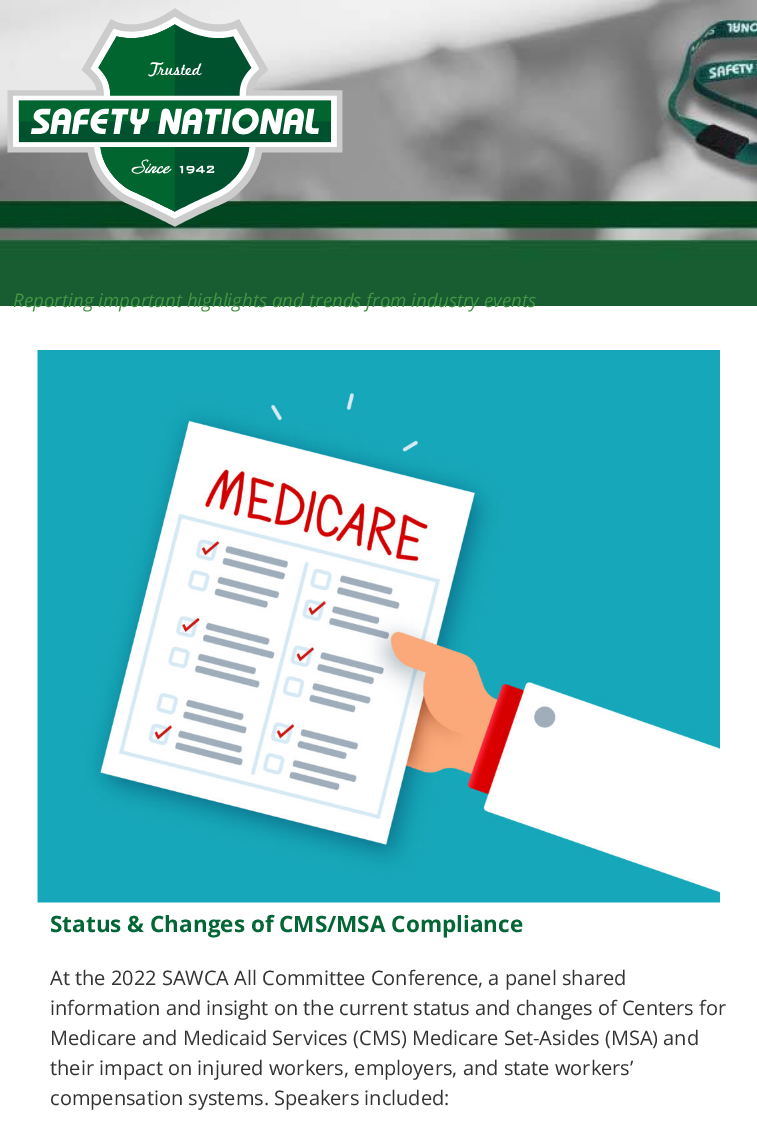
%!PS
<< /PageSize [757 1135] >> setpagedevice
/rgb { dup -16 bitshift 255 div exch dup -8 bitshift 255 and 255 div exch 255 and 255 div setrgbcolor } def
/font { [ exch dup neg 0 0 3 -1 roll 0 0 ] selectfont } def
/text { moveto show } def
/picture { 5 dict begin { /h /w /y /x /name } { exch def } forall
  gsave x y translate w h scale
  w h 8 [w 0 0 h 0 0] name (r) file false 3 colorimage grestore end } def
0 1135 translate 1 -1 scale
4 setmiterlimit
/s1 { /OpenSans-Italic 18.75 font 16#429544 rgb } def
/s2 { /OpenSans-Bold 22.5 font 16#026635 rgb } def
/s3 { /OpenSans-Regular 20 font 16#333333 rgb } def
16#FFFFFF rgb
0 0 757 1135 rectfill
(pic1.raw) 0 0 757 306 picture
(pic2.raw) 7 8 336 219 picture
s1
(Reporting important highlights and trends from industry events) 13 307 text
(pic3.raw) 37 350 683 553 picture
s2
(Status & Changes of CMS/MSA Compliance) 50 932 text
s3
(At the 2022 SAWCA All Committee Conference, a panel shared) 50 985 text
(information and insight on the current status and changes of Centers for) 50 1015 text
(Medicare and Medicaid Services \(CMS\) Medicare Set-Asides \(MSA\) and) 50 1045 text
(their impact on injured workers, employers, and state workers’) 50 1075 text
(compensation systems. Speakers included:) 50 1105 text
showpage
